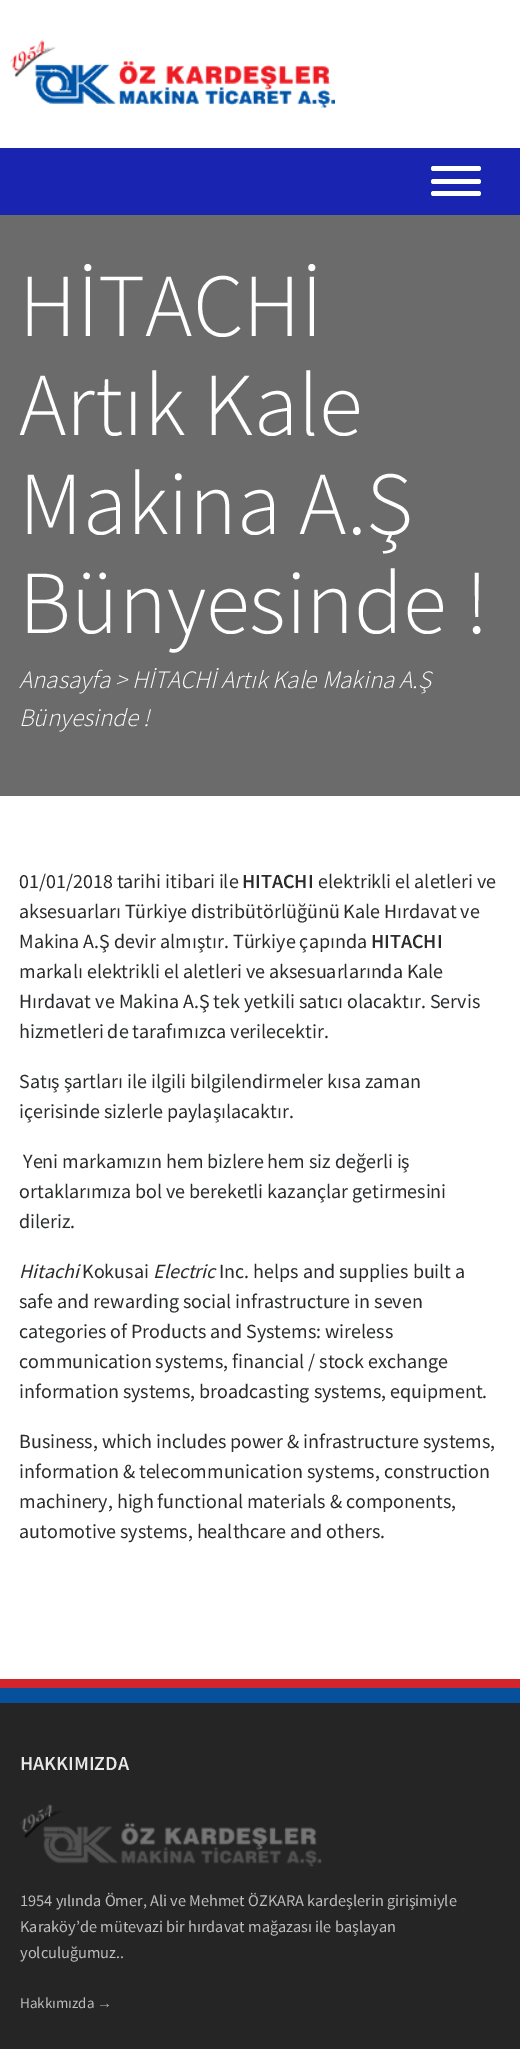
%!PS
<< /PageSize [520 2049] >> setpagedevice
/rgb { dup -16 bitshift 255 div exch dup -8 bitshift 255 and 255 div exch 255 and 255 div setrgbcolor } def
/font { [ exch dup neg 0 0 3 -1 roll 0 0 ] selectfont } def
/text { moveto show } def
/roundrect { 5 dict begin { /r /h /w /y /x } { exch def } forall
  x r add y moveto x w add y 2 copy h add r arct x w add y h add x 1 index r arct
  x y h add x y r arct x y 2 copy exch w add exch r arct closepath end } def
/picture { 5 dict begin { /h /w /y /x /name } { exch def } forall
  gsave x y translate w h scale
  w h 8 [w 0 0 h 0 0] name (r) file false 3 colorimage grestore end } def
0 2049 translate 1 -1 scale
4 setmiterlimit
/s1 { /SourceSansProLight-Light 90 font 16#FFFFFF rgb } def
/s2 { /SourceSansProLight-LightItalic 25 font 16#FFFFFF rgb } def
/s3 { /SourceSansPro-Regular 20 font 16#292B2C rgb } def
/s4 { /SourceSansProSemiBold-SemiBold 20 font 16#292B2C rgb } def
/s5 { /SourceSansPro-Italic 20 font 16#292B2C rgb } def
/s6 { /SourceSansProSemiBold-SemiBold 20 font 16#E8E8E8 rgb } def
/s7 { /SourceSansPro-Regular 16.25 font 16#BDBDBD rgb } def
/s8 { /SourceSansPro-Regular 15 font 16#BDBDBD rgb } def
/s9 { /LiberationSans-Regular 15 font 16#BDBDBD rgb } def
16#FFFFFF rgb
0 0 520 2049 rectfill
(pic1.raw) 10 40 325 68 picture
16#1924B1 rgb
0 148 520 67 rectfill
16#FFFFFF rgb
431 191 50 5 2.5 roundrect fill
431 166 50 5 2.5 roundrect fill
431 179 50 5 2.5 roundrect fill
16#6B6B6B rgb
0 215 520 581 rectfill
s1
(HİTACHİ) 19 336 text
(Artık Kale) 19 435 text
(Makina A.Ş) 19 534 text
(Bünyesinde !) 19 633 text
s2
(Anasayfa > HİTACHİ Artık Kale Makina A.Ş) 19 688 text
(Bünyesinde !) 19 726 text
s3
(01/01/2018 tarihi itibari ile) 19 888 text
s4
(HITACHI) 242 888 text
s3
(elektrikli el aletleri ve) 318 888 text
(aksesuarları Türkiye distribütörlüğünü Kale Hırdavat ve) 19 918 text
(Makina A.Ş devir almıştır. Türkiye çapında) 19 948 text
s4
(HITACHI) 371 948 text
s3
(markalı elektrikli el aletleri ve aksesuarlarında Kale) 19 978 text
(Hırdavat ve Makina A.Ş tek yetkili satıcı olacaktır. Servis) 19 1008 text
(hizmetleri de tarafımızca verilecektir.) 19 1038 text
(Satış şartları ile ilgili bilgilendirmeler kısa zaman) 19 1088 text
(içerisinde sizlerle paylaşılacaktır.) 19 1118 text
(Yeni markamızın hem bizlere hem siz değerli iş) 23 1168 text
(ortaklarımıza bol ve bereketli kazançlar getirmesini) 19 1198 text
(dileriz.) 19 1228 text
s5
(Hitachi) 19 1278 text
s3
(Kokusai) 82 1278 text
s5
(Electric) 153 1278 text
s3
(Inc. helps and supplies built a) 219 1278 text
(safe and rewarding social infrastructure in seven) 19 1308 text
(categories of Products and Systems: wireless) 19 1338 text
(communication systems, financial / stock exchange) 19 1368 text
(information systems, broadcasting systems, equipment.) 19 1398 text
(Business, which includes power & infrastructure systems,) 19 1448 text
(information & telecommunication systems, construction) 19 1478 text
(machinery, high functional materials & components,) 19 1508 text
(automotive systems, healthcare and others.) 19 1538 text
16#D5252C rgb
0 1679 520 9 rectfill
16#07519C rgb
0 1688 520 15 rectfill
16#252525 rgb
0 1703 520 346 rectfill
s6
(HAKKIMIZDA) 20 1770 text
(pic2.raw) 20 1804 302 63 picture
s7
(1954 yılında Ömer, Ali ve Mehmet ÖZKARA kardeşlerin girişimiyle) 20 1906 text
(Karaköy’de mütevazi bir hırdavat mağazası ile başlayan) 20 1932 text
(yolculuğumuz..) 20 1958 text
s8
(Hakkımızda) 20 2008 text
s9
(→) 97 2008 text
showpage
